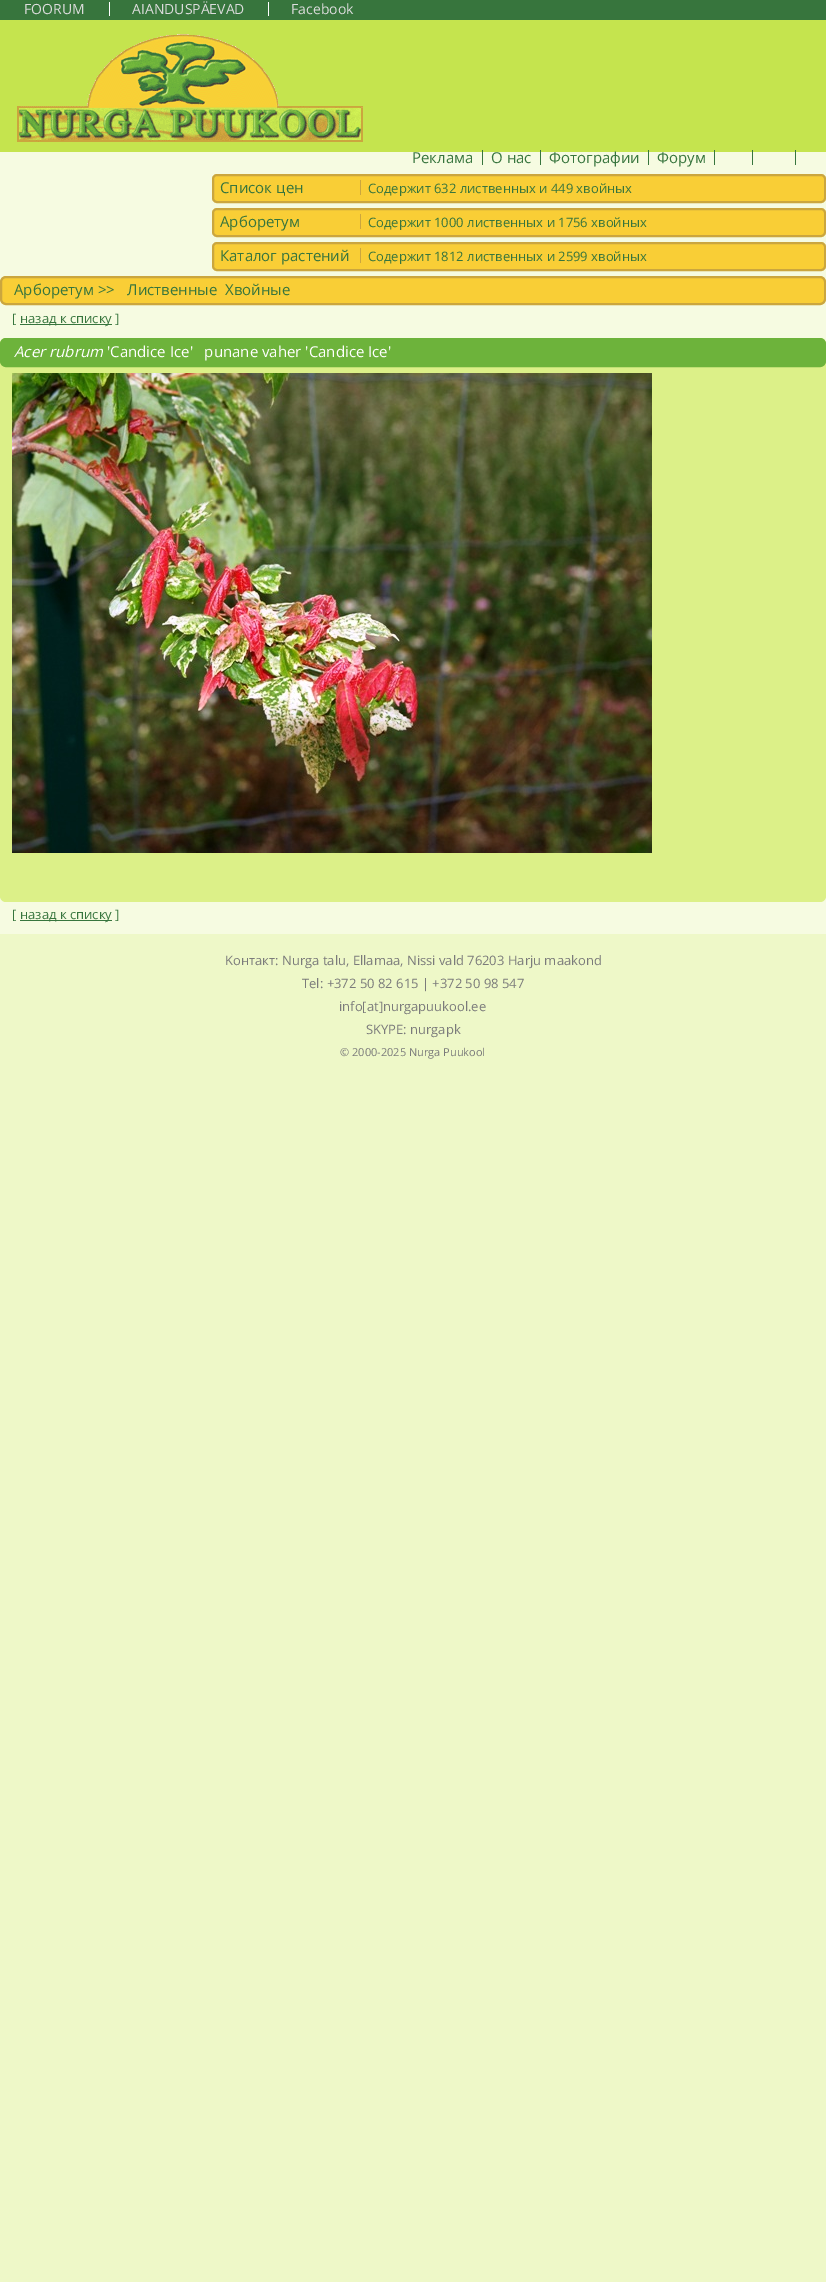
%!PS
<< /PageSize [826 2282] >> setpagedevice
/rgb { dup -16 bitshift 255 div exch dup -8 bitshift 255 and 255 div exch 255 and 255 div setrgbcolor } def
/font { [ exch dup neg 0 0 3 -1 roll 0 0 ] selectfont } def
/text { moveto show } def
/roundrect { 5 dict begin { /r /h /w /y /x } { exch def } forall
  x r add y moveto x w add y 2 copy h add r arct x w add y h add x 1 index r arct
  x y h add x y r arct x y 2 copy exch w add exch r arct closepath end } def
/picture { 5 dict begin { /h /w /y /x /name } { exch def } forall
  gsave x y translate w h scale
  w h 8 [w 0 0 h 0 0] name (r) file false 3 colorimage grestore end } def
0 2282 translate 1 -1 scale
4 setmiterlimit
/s1 { /OpenSans-Regular 14 font 16#DCDCDC rgb } def
/s2 { /OpenSans-Regular 15 font 16#37753D rgb } def
/s3 { /OpenSans-Regular 13 font 16#37753D rgb } def
/s4 { /OpenSans-Italic 15 font 16#FFFFFF rgb } def
/s5 { /OpenSans-Regular 15 font 16#FFFFFF rgb } def
/s6 { /OpenSans-Regular 13 font 16#7B7B7B rgb } def
/s7 { /OpenSans-Regular 11 font 16#7B7B7B rgb } def
16#EEF8C8 rgb
0 0 826 2282 rectfill
16#F6FBE1 rgb
0 152 826 782 rectfill
16#37753D rgb
0 0 826 20 rectfill
s1
(FOORUM) 24 14 text
16#FFFFFF rgb
109 2 1 14 rectfill
s1
(AIANDUSPÄEVAD) 132 14 text
16#FFFFFF rgb
268 2 1 14 rectfill
s1
(Facebook) 291 14 text
16#C5E44E rgb
0 20 826 132 rectfill
(pic1.raw) 17 34 346 108 picture
s2
(Реклама) 412 163 text
482 150 1 15 rectfill
(О нас) 491 163 text
540 150 1 15 rectfill
(Фотографии) 549 163 text
648 150 1 15 rectfill
(Форум) 657 163 text
714 150 1 15 rectfill
752 150 1 15 rectfill
795 150 1 15 rectfill
16#F9CE36 rgb
213 175 612 27 4 roundrect gsave fill grestore
16#CBA63E rgb
2 setlinewidth
stroke
360 180 1 15 rectfill
s2
(Список цен) 220 193 text
s3
(Содержит 632 лиственных и 449 хвойных) 368 193 text
16#F9CE36 rgb
213 209 612 27 4 roundrect gsave fill grestore
16#CBA63E rgb
stroke
360 214 1 15 rectfill
s2
(Арборетум) 220 227 text
s3
(Содержит 1000 лиственных и 1756 хвойных) 368 227 text
16#F9CE36 rgb
213 243 612 27 4 roundrect gsave fill grestore
16#CBA63E rgb
stroke
360 248 1 15 rectfill
s2
(Каталог растений) 220 261 text
s3
(Содержит 1812 лиственных и 2599 хвойных) 368 261 text
16#F9CE36 rgb
1 277 824 27 5 roundrect gsave fill grestore
16#CBA63E rgb
stroke
s2
(Арборетум >>) 14 295 text
(Лиственные) 127 295 text
(Хвойные) 225 295 text
s3
([) 12 323 text
20 324 92 1 rectfill
(назад к списку ]) 20 323 text
16#DCF088 rgb
0 338 826 564 6 roundrect fill
16#6DB33B rgb
1 339 824 27 5 roundrect gsave fill grestore
stroke
s4
(Acer rubrum) 14 357 text
s5
('Candice Ice'   punane vaher 'Candice Ice') 107 357 text
(pic2.raw) 12 373 640 480 picture
s3
([) 12 919 text
20 920 92 1 rectfill
(назад к списку ]) 20 919 text
s6
(Koнтакт: Nurga talu, Ellamaa, Nissi vald 76203 Harju maakond) 225 965 text
(Tel: +372 50 82 615 | +372 50 98 547) 302 988 text
(info[at]nurgapuukool.ee) 339 1011 text
(SKYPE: nurgapk) 366 1034 text
s7
(© 2000-2025 Nurga Puukool) 340 1056 text
showpage
